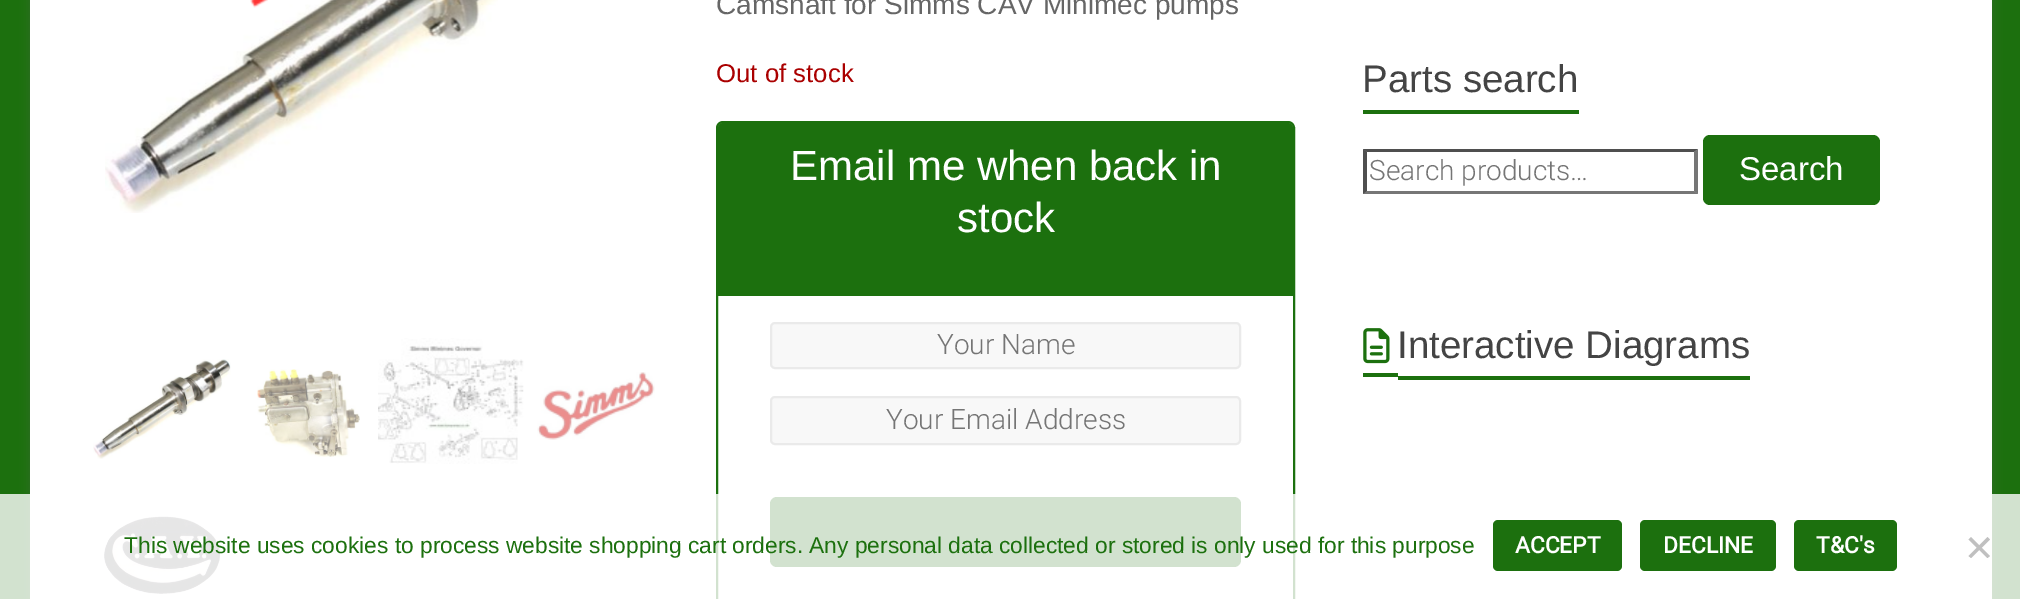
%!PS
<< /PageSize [2020 599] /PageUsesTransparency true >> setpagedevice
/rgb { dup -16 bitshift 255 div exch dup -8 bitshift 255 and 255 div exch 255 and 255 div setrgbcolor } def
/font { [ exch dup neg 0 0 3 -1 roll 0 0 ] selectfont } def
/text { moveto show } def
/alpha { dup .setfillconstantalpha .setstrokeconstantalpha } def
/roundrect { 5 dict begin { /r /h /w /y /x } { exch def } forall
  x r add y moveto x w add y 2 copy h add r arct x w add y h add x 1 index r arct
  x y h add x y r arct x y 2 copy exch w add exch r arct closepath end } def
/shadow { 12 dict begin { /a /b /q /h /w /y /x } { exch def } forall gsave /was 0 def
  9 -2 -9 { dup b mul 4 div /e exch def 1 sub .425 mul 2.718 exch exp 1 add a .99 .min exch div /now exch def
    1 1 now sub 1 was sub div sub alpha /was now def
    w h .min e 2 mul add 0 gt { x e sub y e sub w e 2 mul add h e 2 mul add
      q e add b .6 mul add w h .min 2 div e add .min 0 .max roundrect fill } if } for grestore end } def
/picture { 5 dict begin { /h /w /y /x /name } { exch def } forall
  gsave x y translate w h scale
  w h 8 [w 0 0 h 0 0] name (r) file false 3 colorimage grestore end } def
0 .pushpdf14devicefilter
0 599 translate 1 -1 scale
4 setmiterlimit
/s1 { /LiberationSans-Regular 28 font 16#666666 rgb } def
/s2 { /LiberationSans-Regular 25.75 font 16#AA0000 rgb } def
/s3 { /LiberationSans-Regular 42 font 16#FFFFFF rgb } def
/s4 { /Roboto-Light 28 font 16#757575 rgb } def
/s5 { /LiberationSans-Regular 38.5 font 16#444444 rgb } def
/s6 { /LiberationSans-Regular 33 font 16#FFFFFF rgb } def
/s7 { /LiberationSans-Regular 22.75 font 16#1C700E rgb } def
/s8 { /Roboto-Bold 22.75 font 16#FFFFFF rgb } def
16#1C700E rgb
0 0 2020 599 rectfill
16#646464 rgb
30 -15 1962 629 0 5 0.3 shadow
16#FFFFFF rgb
30 0 1962 599 rectfill
(pic1.raw) 105 0 393 213 picture
(pic2.raw) 250 0 18 8 picture
(pic3.raw) 93 359 138 100 picture
(pic4.raw) 257 369 103 88 picture
(pic5.raw) 378 338 146 126 picture
(pic6.raw) 537 372 118 68 picture
(pic7.raw) 104 516 117 78 picture
s1
(Camshaft for Simms CAV Minimec pumps) 716 14 text
s2
(Out of stock) 716 82 text
16#1C700E rgb
2 setlinewidth
717 122 577 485 6 roundrect stroke
723 123 moveto 1288 123 lineto 1291 123 1293 125 1293 128 curveto 1293 296 lineto 718 296 lineto 718 128 lineto 718 125 720 123 723 123 curveto closepath fill
s3
(Email me when back in) 790 180 text
(stock) 957 232 text
16#F8F8F8 rgb
771 323 469 45 4 roundrect gsave fill grestore
16#EAEAEA rgb
stroke
s4
(Your Name) 937 354 text
16#F8F8F8 rgb
771 397 469 47 4 roundrect gsave fill grestore
16#EAEAEA rgb
stroke
s4
(Your Email Address) 886 429 text
16#1C700E rgb
770 497 471 70 7 roundrect fill
s5
(Parts search) 1362 92 text
16#1C700E rgb
1363 110 216 4 rectfill
16#4F4F4F rgb
1363 149 moveto 1698 149 lineto 1694 152 lineto 1367 152 lineto closepath fill
16#767676 rgb
1698 149 moveto 1698 194 lineto 1694 191 lineto 1694 152 lineto closepath fill
1698 194 moveto 1363 194 lineto 1367 191 lineto 1694 191 lineto closepath fill
16#4F4F4F rgb
1363 194 moveto 1363 149 lineto 1367 152 lineto 1367 191 lineto closepath fill
s4
(Search products…) 1369 180 text
16#1C700E rgb
1703 135 177 70 7 roundrect fill
s6
(Search) 1739 180 text
(pic8.raw) 1363 328 27 36 picture
s5
(Interactive Diagrams) 1397 358 text
16#1C700E rgb
1363 373 35 4 rectfill
1398 376 352 4 rectfill
0.8 alpha
16#FFFFFF rgb
0 494 2020 105 rectfill
1 alpha
s7
(This website uses cookies to process website shopping cart orders. Any personal data collected or stored is only used for this purpose) 124 553 text
1493 520 129 51 5 roundrect fill
s8
(ACCEPT) 1515 553 text
16#1C700E rgb
1640 520 136 51 5 roundrect fill
s8
(DECLINE) 1663 553 text
16#1C700E rgb
1794 520 103 51 5 roundrect fill
s8
(T&C's) 1816 553 text
16#C0C0C0 rgb
1987.5 537 moveto 1990 539.5 lineto 1971 558 lineto 1968.5 556 lineto closepath fill
1968.5 539.5 moveto 1971 537 lineto 1990 556 lineto 1987.5 558 lineto closepath fill
.poppdf14devicefilter showpage
